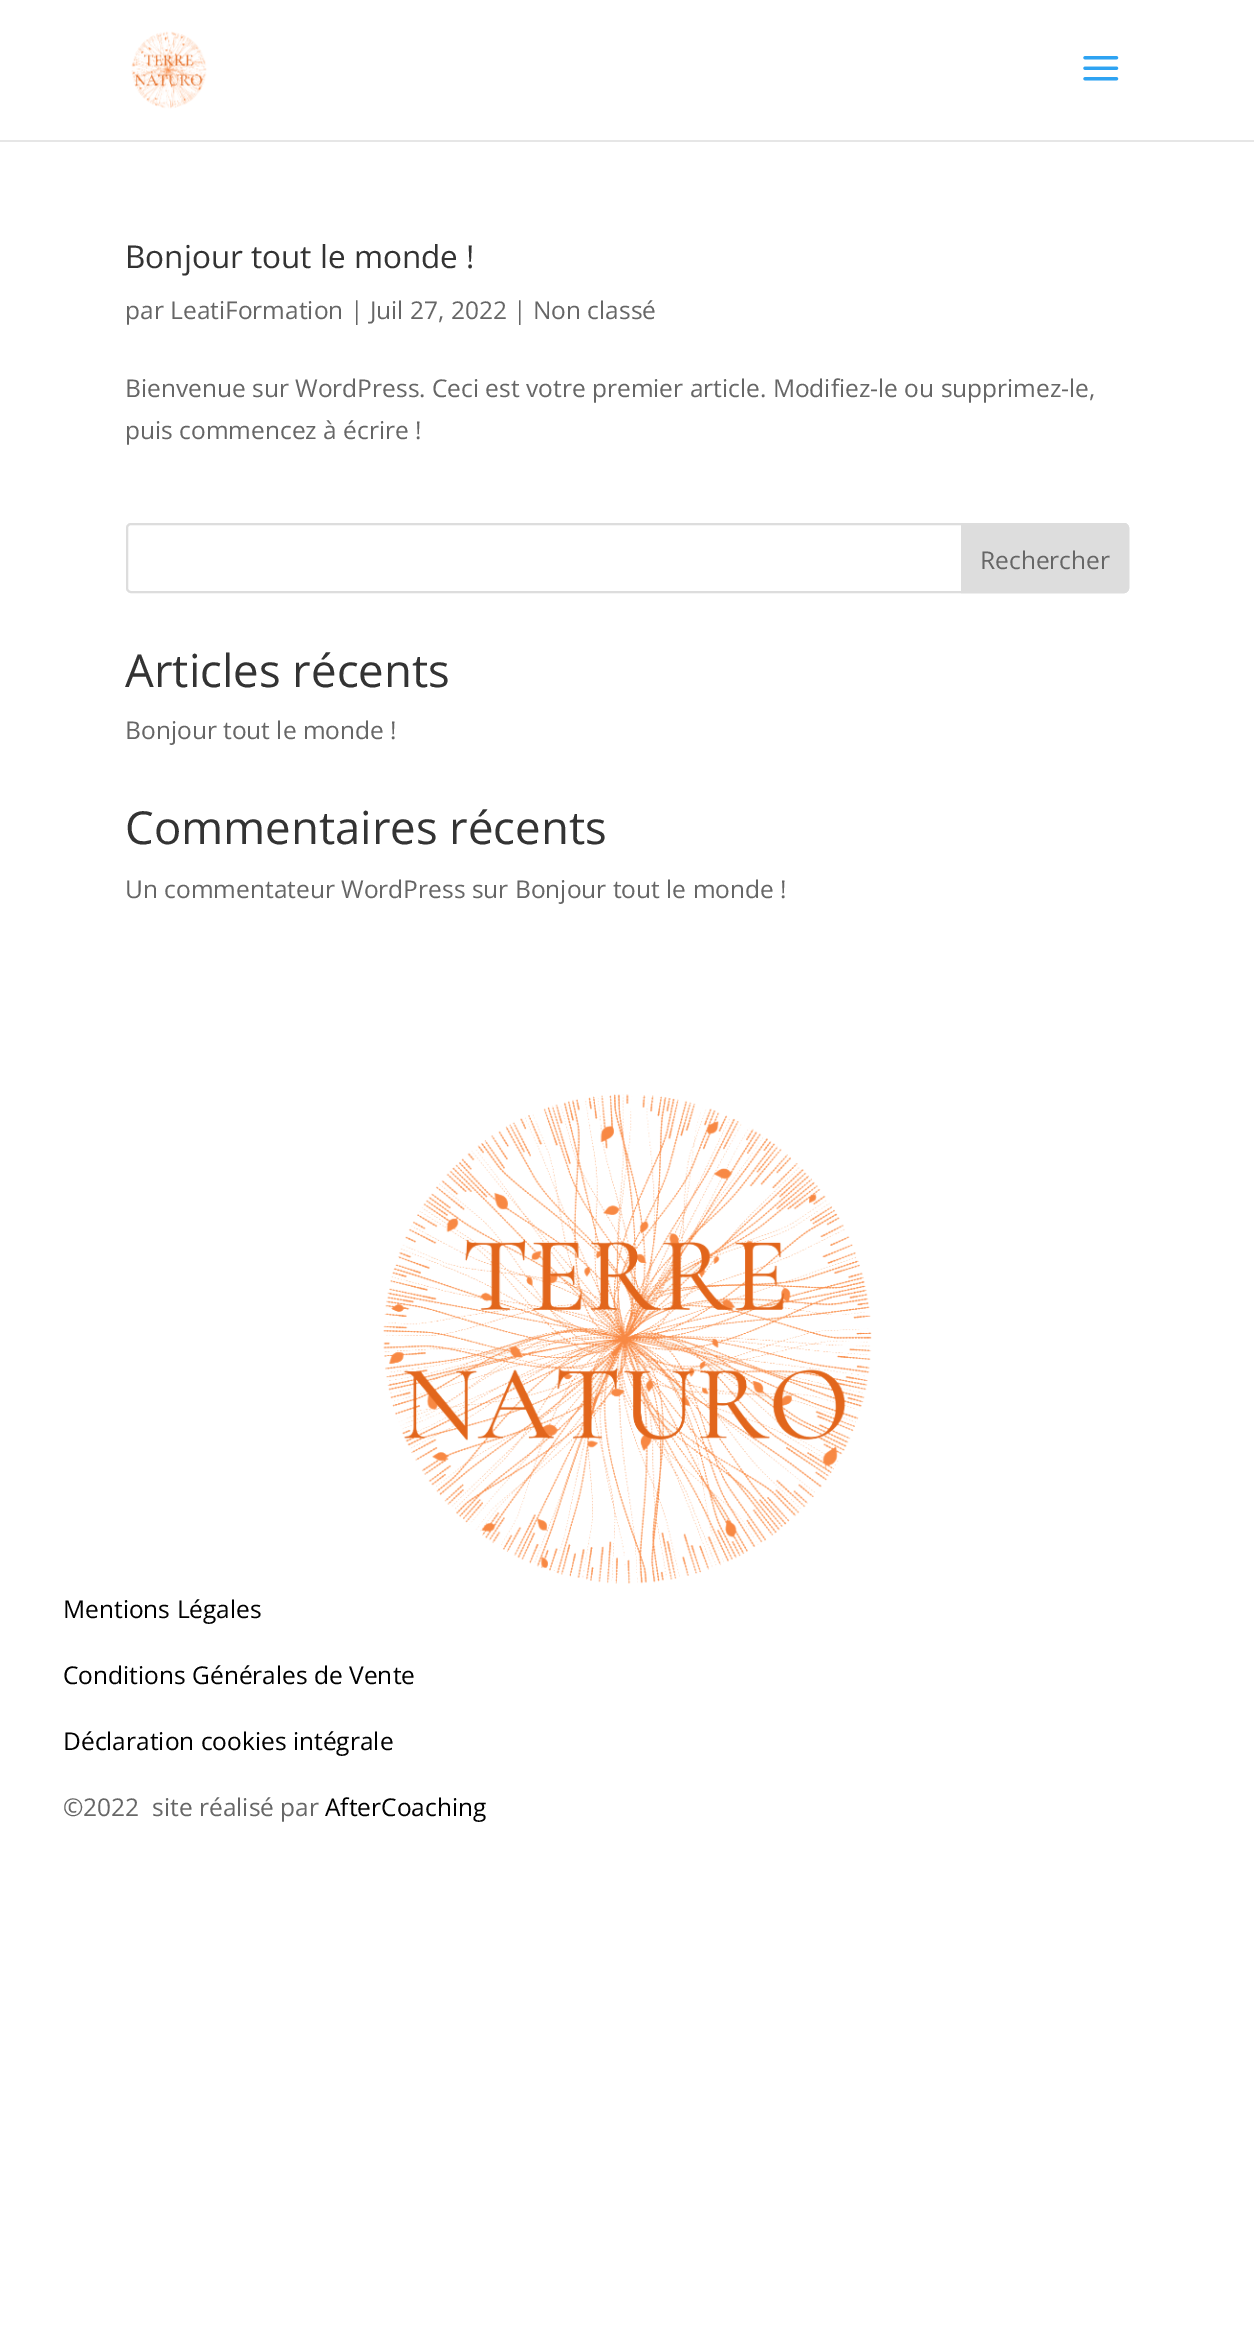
%!PS
<< /PageSize [1254 2350] >> setpagedevice
/rgb { dup -16 bitshift 255 div exch dup -8 bitshift 255 and 255 div exch 255 and 255 div setrgbcolor } def
/font { [ exch dup neg 0 0 3 -1 roll 0 0 ] selectfont } def
/text { moveto show } def
/roundrect { 5 dict begin { /r /h /w /y /x } { exch def } forall
  x r add y moveto x w add y 2 copy h add r arct x w add y h add x 1 index r arct
  x y h add x y r arct x y 2 copy exch w add exch r arct closepath end } def
/picture { 5 dict begin { /h /w /y /x /name } { exch def } forall
  gsave x y translate w h scale
  w h 8 [w 0 0 h 0 0] name (r) file false 3 colorimage grestore end } def
0 2350 translate 1 -1 scale
4 setmiterlimit
/s1 { /OpenSans-Regular 31.5 font 16#333333 rgb } def
/s2 { /OpenSans-Regular 24.5 font 16#666666 rgb } def
/s3 { /OpenSans-Regular 45.5 font 16#333333 rgb } def
/s4 { /OpenSans-Regular 24.5 font 16#000000 rgb } def
16#FFFFFF rgb
0 0 1254 2350 rectfill
16#E6E6E6 rgb
0 140 moveto 0 142 lineto 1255 142 lineto 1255 2 lineto 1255 140 lineto closepath fill
(pic1.raw) 131 31 76 78 picture
(pic2.raw) 1083 56 36 25 picture
s1
(Bonjour tout le monde !) 125 268 text
s2
(par LeatiFormation | Juil 27, 2022 | Non classé) 125 319 text
(Bienvenue sur WordPress. Ceci est votre premier article. Modifiez-le ou supprimez-le,) 125 397 text
(puis commencez à écrire !) 125 439 text
16#DDDDDD rgb
2 setlinewidth
127 524 1001 68 4 roundrect stroke
962 524 moveto 1124 524 lineto 1126 524 1128 526 1128 528 curveto 1128 588 lineto 1128 590 1126 592 1124 592 curveto 962 592 lineto closepath gsave fill grestore
stroke
s2
(Rechercher) 980 569 text
s3
(Articles récents) 125 687 text
s2
(Bonjour tout le monde !) 125 739 text
s3
(Commentaires récents) 125 844 text
s2
(Un commentateur WordPress sur Bonjour tout le monde !) 125 898 text
(pic3.raw) 383 1094 489 490 picture
s4
(Mentions Légales) 63 1618 text
(Conditions Générales de Vente) 63 1684 text
(Déclaration cookies intégrale) 63 1750 text
s2
(©2022  site réalisé par) 63 1816 text
s4
(AfterCoaching) 325 1816 text
showpage
